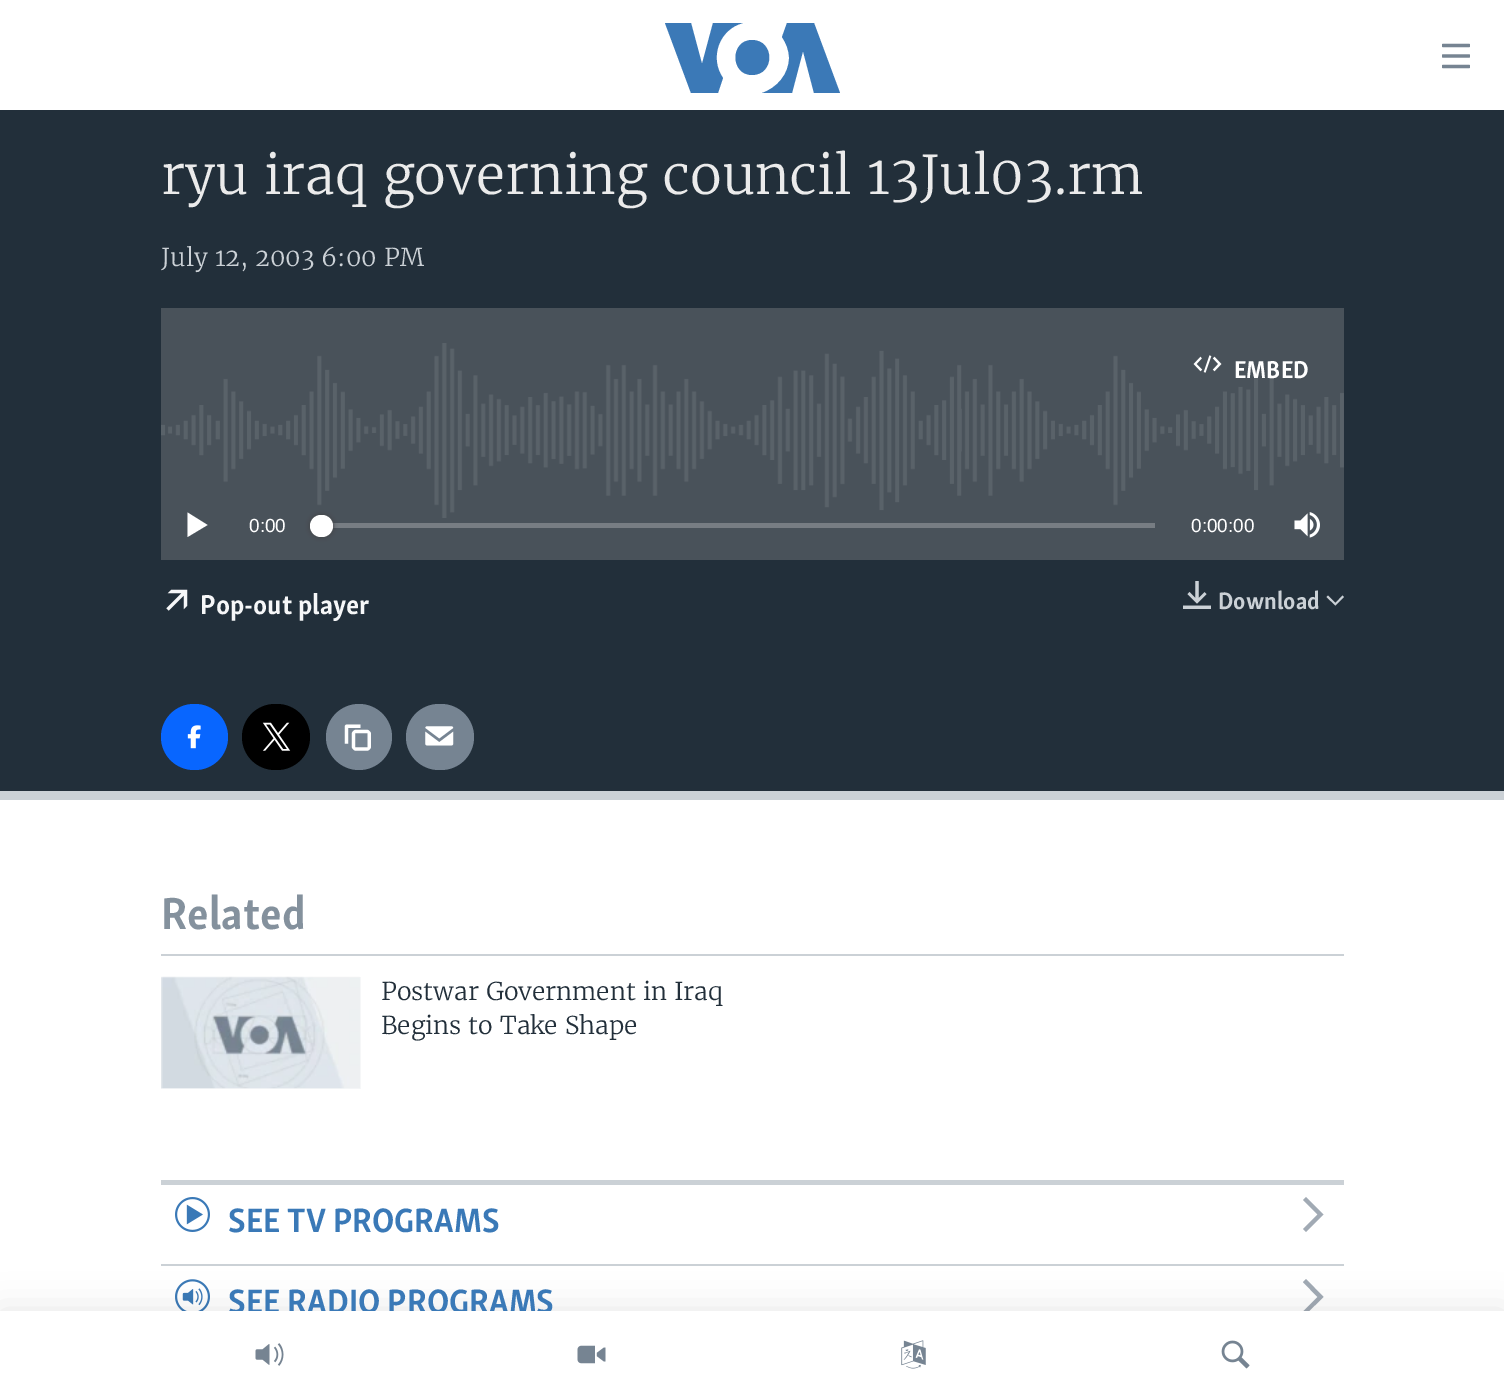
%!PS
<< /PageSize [1504 1397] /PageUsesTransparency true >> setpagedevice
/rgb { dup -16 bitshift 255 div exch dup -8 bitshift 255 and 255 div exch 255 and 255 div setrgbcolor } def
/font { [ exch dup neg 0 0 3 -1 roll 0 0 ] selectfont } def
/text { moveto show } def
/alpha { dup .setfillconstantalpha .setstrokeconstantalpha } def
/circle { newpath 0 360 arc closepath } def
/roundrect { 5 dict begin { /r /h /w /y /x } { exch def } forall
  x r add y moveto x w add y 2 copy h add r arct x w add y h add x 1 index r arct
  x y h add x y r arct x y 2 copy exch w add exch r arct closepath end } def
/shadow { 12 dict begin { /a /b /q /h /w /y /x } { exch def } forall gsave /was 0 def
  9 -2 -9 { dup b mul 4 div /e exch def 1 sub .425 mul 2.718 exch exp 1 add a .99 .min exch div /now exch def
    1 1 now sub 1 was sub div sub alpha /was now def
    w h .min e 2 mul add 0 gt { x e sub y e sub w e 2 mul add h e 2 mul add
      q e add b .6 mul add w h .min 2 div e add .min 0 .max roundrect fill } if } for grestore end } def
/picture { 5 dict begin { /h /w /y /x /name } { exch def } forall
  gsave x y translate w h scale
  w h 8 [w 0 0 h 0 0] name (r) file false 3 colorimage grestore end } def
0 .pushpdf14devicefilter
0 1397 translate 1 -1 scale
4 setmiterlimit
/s1 { /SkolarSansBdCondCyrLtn-Bold 34.75 font 16#3A79B7 rgb } def
/s2 { /Merriweather-Light 53.25 font 16#EBEBEB rgb } def
/s3 { /Merriweather-Light 24.5 font 16#CBD1D6 rgb } def
/s4 { /SkolarSansBdCondCyrLtn-Bold 25 font 16#FFFFFF rgb } def
/s5 { /LiberationSans-Regular 19 font 16#FFFFFF rgb } def
/s6 { /SkolarSansBdCondCyrLtn-Bold 28 font 16#F6F7F8 rgb } def
/s7 { /SkolarSansBdCondCyrLtn-Bold 24.5 font 16#CBD1D6 rgb } def
/s8 { /SkolarSansBdCondCyrLtn-Bold 46 font 16#84919D rgb } def
/s9 { /Merriweather-Light 24.5 font 16#222F3A rgb } def
16#FFFFFF rgb
0 0 1504 1397 rectfill
16#3B79B7 rgb
723 78 moveto 718 93 lineto 691 93 lineto 665 23 lineto 691 23 lineto 702 64 lineto 713 23 lineto 743 23 lineto 719 29 709 58 723 78 curveto closepath 752 40 moveto 730 40 730 75 752 75 curveto 775 75 775 40 752 40 curveto closepath 789 58 moveto 789 74 777 88 762 93 curveto 792 93 lineto 803 51 lineto 814 93 lineto 840 93 lineto 814 23 lineto 787 23 lineto 782 37 lineto 786 43 789 50 789 58 curveto closepath fill
(pic1.raw) 1442 43 28 26 picture
16#CBD1D6 rgb
161 1264 1183 2 rectfill
(pic17.raw) 175 1279 35 32 picture
16#A1AAB4 rgb
1306 1314 moveto 1323.5 1297 lineto 1306 1279 lineto 1303 1282 lineto 1317.5 1297 lineto 1303 1311.5 lineto closepath fill
16#000000 rgb
0 1311 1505 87 0 17.5 0.1 shadow
s1
(SEE RADIO PROGRAMS) 228 1313 text
16#FFFFFF rgb
0 1311 1504 86 rectfill
(pic2.raw) 255 1343 29 23 picture
(pic3.raw) 577 1345 29 19 picture
(pic4.raw) 901 1340 25 29 picture
(pic5.raw) 1221 1340 29 29 picture
16#222F3A rgb
0 110 1504 681 rectfill
16#CBD1D6 rgb
0 791 1504 9 rectfill
s2
(ryu iraq governing council 13Jul03.rm) 161 194 text
s3
(July 12, 2003 6:00 PM) 161 266 text
16#49525A rgb
161 308 1183 252 rectfill
(pic6.raw) 161 343 1183 175 picture
(pic7.raw) 1193 355 29 18 picture
s4
(EMBED) 1234 378 text
187.5 537 moveto 207.5 525 lineto 187.5 512.5 lineto closepath fill
s5
(0:00) 249 532 text
16#777D83 rgb
332 523 823 5 rectfill
16#414144 rgb
310 515 23 22 11 2.5 1 shadow
16#FFFFFF rgb
310 515 23 22 11 roundrect fill
(0:00:00) 1191 532 text
(pic8.raw) 1294 512 26 26 picture
(pic9.raw) 166 589 22 22 picture
s6
(Pop-out player) 200 614 text
(pic10.raw) 1183 581 28 28 picture
s7
(Download) 1218 609 text
1326.5 597 moveto 1335.5 605.5 lineto 1344 597 lineto 1342.5 595.5 lineto 1335.5 603 lineto 1328 595.5 lineto closepath fill
16#0866FF rgb
161 704 67 66 33 roundrect fill
(pic11.raw) 187 725 14 24 picture
16#000000 rgb
242 704 68 66 33 roundrect fill
(pic12.raw) 262 722 29 29 picture
16#768492 rgb
359 737 33 circle fill
(pic13.raw) 344 724 27 27 picture
406 704 68 66 33 roundrect fill
(pic14.raw) 425 726 29 20 picture
16#CBD1D6 rgb
161 954 1183 2 rectfill
s8
(Related) 161 929 text
16#F6F7F8 rgb
161 977 200 112 rectfill
(pic15.raw) 161 976 199 113 picture
s9
(Postwar Government in Iraq) 381 1000 text
(Begins to Take Shape) 381 1034 text
16#CBD1D6 rgb
161 1180 1183 5 rectfill
(pic16.raw) 175 1197 35 35 picture
s1
(SEE TV PROGRAMS) 228 1232 text
16#A1AAB4 rgb
1306 1232 moveto 1323.5 1214.5 lineto 1306 1197 lineto 1303 1200 lineto 1317.5 1214.5 lineto 1303 1229 lineto closepath fill
.poppdf14devicefilter showpage
